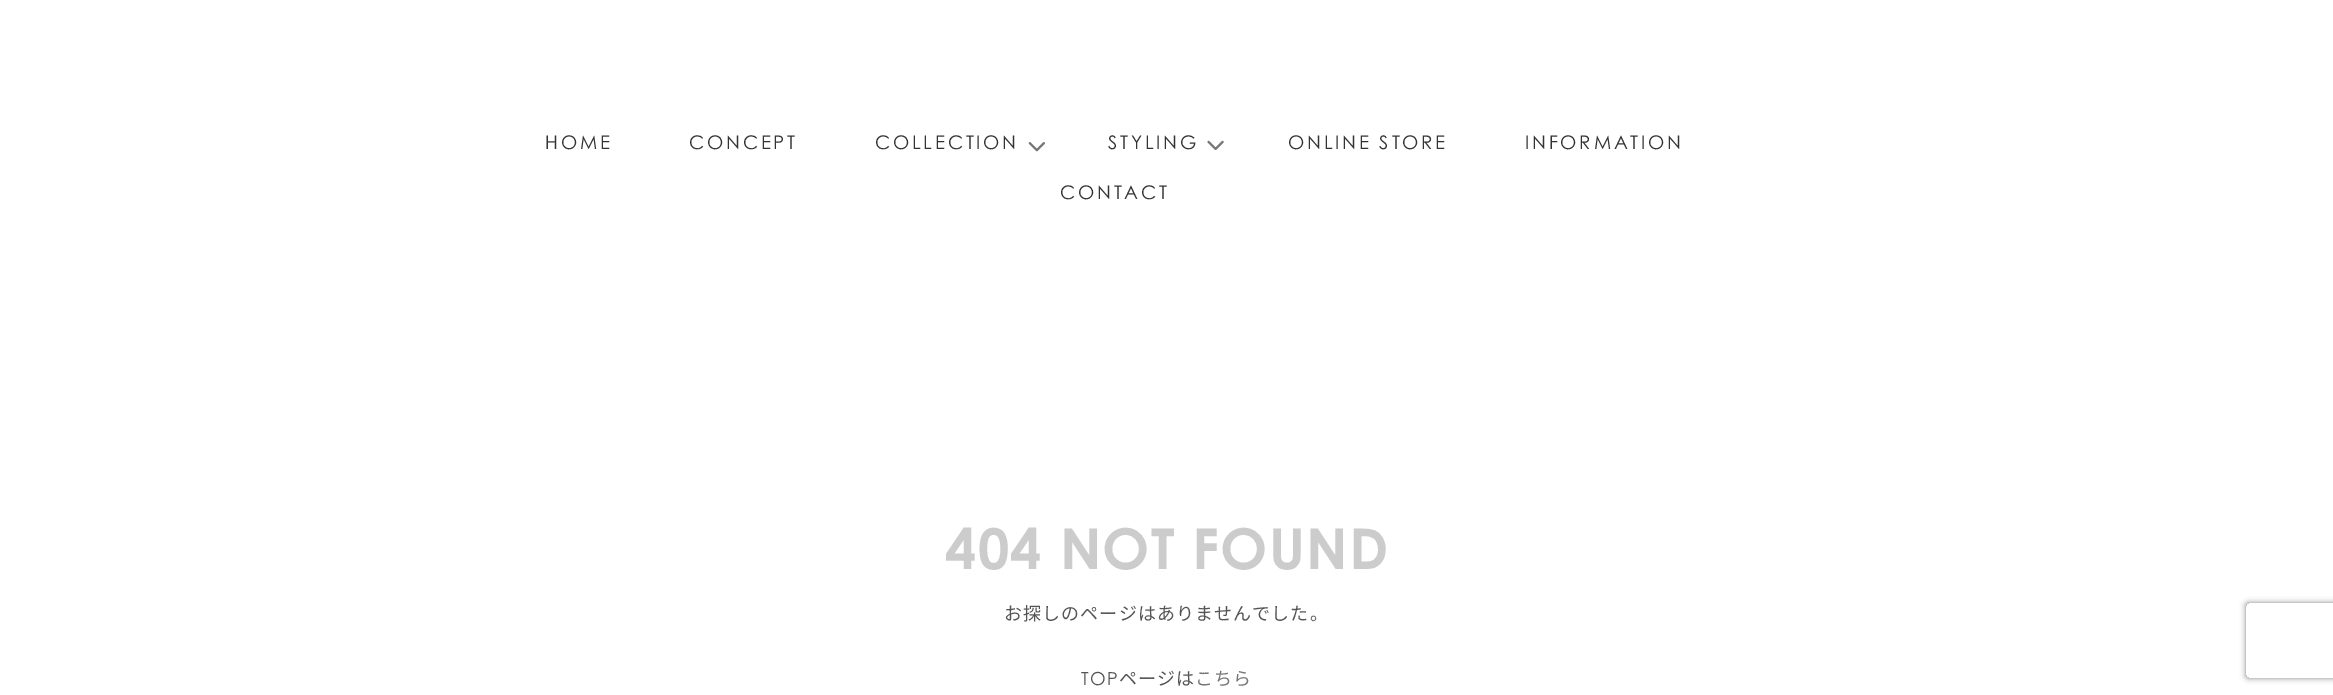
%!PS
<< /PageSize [2333 695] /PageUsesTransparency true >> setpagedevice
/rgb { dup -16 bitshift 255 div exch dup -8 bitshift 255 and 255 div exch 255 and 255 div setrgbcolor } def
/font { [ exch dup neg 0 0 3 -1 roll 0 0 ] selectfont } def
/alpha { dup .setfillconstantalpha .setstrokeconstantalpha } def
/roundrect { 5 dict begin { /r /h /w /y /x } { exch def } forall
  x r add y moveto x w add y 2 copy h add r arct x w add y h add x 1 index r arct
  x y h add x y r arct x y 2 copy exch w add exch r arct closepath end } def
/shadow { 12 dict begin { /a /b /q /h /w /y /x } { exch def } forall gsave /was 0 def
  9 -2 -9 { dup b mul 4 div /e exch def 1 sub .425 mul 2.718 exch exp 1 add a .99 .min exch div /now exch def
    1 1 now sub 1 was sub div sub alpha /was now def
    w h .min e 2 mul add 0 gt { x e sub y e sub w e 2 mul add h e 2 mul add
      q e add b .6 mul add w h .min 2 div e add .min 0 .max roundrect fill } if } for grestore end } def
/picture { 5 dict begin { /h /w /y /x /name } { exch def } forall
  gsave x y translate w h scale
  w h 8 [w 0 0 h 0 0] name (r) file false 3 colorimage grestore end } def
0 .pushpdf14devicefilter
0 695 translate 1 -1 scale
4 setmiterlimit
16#FFFFFF rgb
0 0 2333 695 rectfill
/CenturyGothic-Regular 18.75 font
16#333333 rgb
545 149 moveto 2.75 0 (HOME) ashow
689 149 moveto 2.75 0 (CONCEPT) ashow
875 149 moveto 2.75 0 (COLLECTION) ashow
(pic1.raw) 1028 142 17 10 picture
1108 149 moveto 2.75 0 (STYLING) ashow
(pic2.raw) 1207 140 17 11 picture
1288 149 moveto 2.75 0 (ONLINE STORE) ashow
1525 149 moveto 2.75 0 (INFORMATION) ashow
1060 199 moveto 2.75 0 (CONTACT) ashow
/CenturyGothic-Bold 56.25 font
16#CCCCCC rgb
945 569 moveto 1.1 0 (404 NOT FOUND) ashow
/NotoSansJP-Regular 18 font
16#555555 rgb
1004 620 moveto 1.1 0 (お探しのページはありませんでした。) ashow
/CenturyGothic-Regular 18 font
1081 685 moveto 1.1 0 (TOP) ashow
/NotoSansJP-Regular 18 font
1119 685 moveto 1.1 0 (ページは) ashow
16#777777 rgb
1195 685 moveto 1.1 0 (こちら) ashow
gsave
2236 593 moveto 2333 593 lineto 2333 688 lineto 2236 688 lineto closepath 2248.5 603 moveto 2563.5 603 lineto 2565 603 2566 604 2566 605.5 curveto 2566 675.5 lineto 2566 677 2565 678 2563.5 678 curveto 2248.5 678 lineto 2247 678 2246 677 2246 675.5 curveto 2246 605.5 lineto 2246 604 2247 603 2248.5 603 curveto closepath eoclip newpath
16#808080 rgb
2246 603 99 75 2.5 3 1 shadow
grestore
.poppdf14devicefilter showpage
